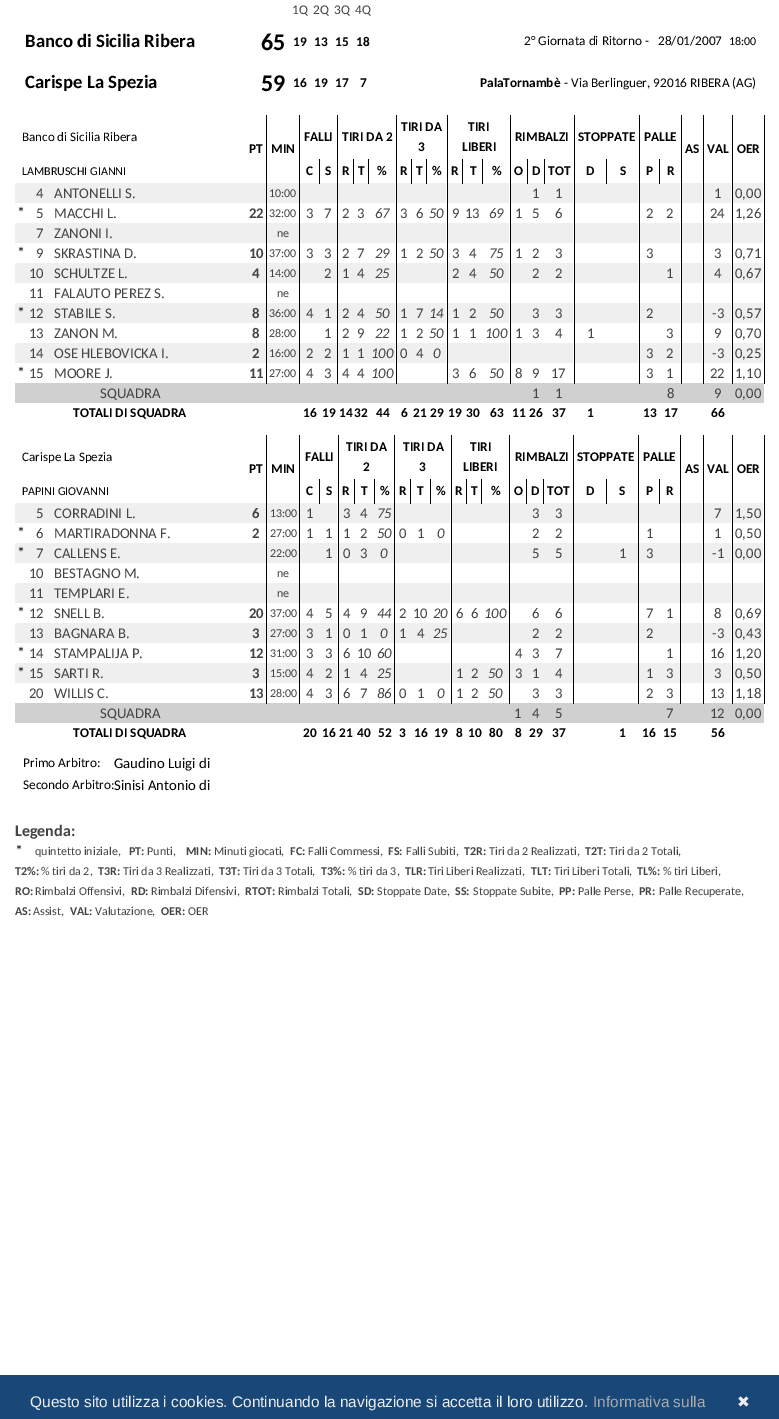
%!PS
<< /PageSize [779 1419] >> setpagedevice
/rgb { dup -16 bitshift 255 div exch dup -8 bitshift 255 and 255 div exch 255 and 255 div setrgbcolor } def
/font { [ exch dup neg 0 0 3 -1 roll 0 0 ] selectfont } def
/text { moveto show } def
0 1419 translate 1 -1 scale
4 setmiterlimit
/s1 { /Carlito-Regular 13.3 font 16#444444 rgb } def
/s2 { /Carlito-Bold 18.75 font 16#000000 rgb } def
/s3 { /Carlito-Bold 24 font 16#000000 rgb } def
/s4 { /Carlito-Bold 13.3 font 16#000000 rgb } def
/s5 { /Carlito-Regular 13.3 font 16#000000 rgb } def
/s6 { /Carlito-Regular 12 font 16#000000 rgb } def
/s7 { /Carlito-Regular 13 font 16#000000 rgb } def
/s8 { /Carlito-Regular 14.75 font 16#444444 rgb } def
/s9 { /Carlito-Regular 12 font 16#444444 rgb } def
/s10 { /Carlito-Regular 16 font 16#000000 rgb } def
/s11 { /Carlito-Bold 14.75 font 16#444444 rgb } def
/s12 { /Carlito-Italic 14.75 font 16#444444 rgb } def
/s13 { /Carlito-Regular 14.75 font 16#000000 rgb } def
/s14 { /Carlito-Bold 16 font 16#444444 rgb } def
/s15 { /Carlito-Bold 12 font 16#444444 rgb } def
/s16 { /LiberationSans-Regular 15.4 font 16#EEEEEE rgb } def
/s17 { /LiberationSans-Regular 15.4 font 16#AAAAAA rgb } def
/s18 { /DejaVuSans-Regular 15.4 font 16#EEEEEE rgb } def
16#FFFFFF rgb
0 0 779 1419 rectfill
s1
(1Q) 292 14 text
(2Q) 313 14 text
(3Q) 334 14 text
(4Q) 355 14 text
s2
(Banco di Sicilia Ribera) 25 47 text
s3
(65) 261 50 text
s4
(19) 293 46 text
(13) 314 46 text
(15) 335 46 text
(18) 356 46 text
s5
(2° Giornata di Ritorno -) 524 45 text
(28/01/2007) 658 45 text
s6
(18:00) 729 45 text
s2
(Carispe La Spezia) 25 88 text
s3
(59) 261 91 text
s4
(16) 293 87 text
(19) 314 87 text
(17) 335 87 text
(7) 360 87 text
(PalaTornambè) 480 87 text
s5
(- Via Berlinguer, 92016 RIBERA \(AG\)) 564 87 text
s7
(Banco di Sicilia Ribera) 22 141 text
s4
(FALLI) 304 141 text
(TIRI DA 2) 342 141 text
(TIRI DA) 401 131 text
(3) 418 151 text
(TIRI) 468 131 text
(LIBERI) 462 151 text
(RIMBALZI) 515 141 text
(STOPPATE) 578 141 text
(PALLE) 644 141 text
(PT) 249 153 text
(MIN) 271 153 text
(AS) 685 153 text
(VAL) 707 153 text
(OER) 737 153 text
s6
(LAMBRUSCHI GIANNI) 22 175 text
16#EFEFEF rgb
300 183 37 20 rectfill
16#000000 rgb
319 159 1 25 rectfill
s4
(C) 306 175 text
(S) 325 175 text
16#EFEFEF rgb
338 183 57 20 rectfill
16#000000 rgb
353 159 1 25 rectfill
(R) 342 175 text
368 159 1 25 rectfill
(T) 358 175 text
(%) 377 175 text
16#EFEFEF rgb
397 183 49 20 rectfill
16#000000 rgb
411 159 1 25 rectfill
(R) 400 175 text
426 159 1 25 rectfill
(T) 416 175 text
(%) 432 175 text
16#EFEFEF rgb
448 183 61 20 rectfill
16#000000 rgb
462 159 1 25 rectfill
(R) 451 175 text
482 159 1 25 rectfill
(T) 470 175 text
(%) 492 175 text
16#EFEFEF rgb
511 183 62 20 rectfill
16#000000 rgb
527 159 1 25 rectfill
(O) 514 175 text
544 159 1 25 rectfill
(D) 532 175 text
(TOT) 548 175 text
16#EFEFEF rgb
575 183 63 20 rectfill
16#000000 rgb
606 159 1 25 rectfill
(D) 586 175 text
(S) 620 175 text
16#EFEFEF rgb
640 183 40 20 rectfill
16#000000 rgb
659 159 1 25 rectfill
(P) 646 175 text
(R) 667 175 text
16#EFEFEF rgb
15 183 251 20 rectfill
682 183 20 20 rectfill
s8
(4) 36 198 text
(ANTONELLI S.) 54 198 text
16#EFEFEF rgb
267 183 32 20 rectfill
s9
(10:00) 269 197 text
s8
(1) 532 198 text
(1) 555 198 text
16#EFEFEF rgb
704 183 27 20 rectfill
s8
(1) 714 198 text
16#EFEFEF rgb
733 183 30 20 rectfill
s8
(0,00) 735 198 text
s10
(*) 17 218 text
s8
(5) 36 218 text
(MACCHI L.) 54 218 text
s11
(22) 249 218 text
s9
(32:00) 269 217 text
s8
(3) 306 218 text
(7) 324 218 text
(2) 342 218 text
(3) 357 218 text
s12
(67) 375 218 text
s8
(3) 400 218 text
(6) 416 218 text
s12
(50) 429 218 text
s8
(9) 452 218 text
(13) 465 218 text
s12
(69) 489 218 text
s8
(1) 515 218 text
(5) 532 218 text
(6) 555 218 text
(2) 646 218 text
(2) 666 218 text
(24) 710 218 text
(1,26) 735 218 text
16#EFEFEF rgb
15 223 251 20 rectfill
300 223 37 20 rectfill
338 223 57 20 rectfill
397 223 49 20 rectfill
448 223 61 20 rectfill
511 223 62 20 rectfill
575 223 63 20 rectfill
640 223 40 20 rectfill
682 223 20 20 rectfill
704 223 27 20 rectfill
733 223 30 20 rectfill
s8
(7) 36 238 text
(ZANONI I.) 54 238 text
16#EFEFEF rgb
267 223 32 20 rectfill
s9
(ne) 277 237 text
s10
(*) 17 258 text
s8
(9) 36 258 text
(SKRASTINA D.) 54 258 text
s11
(10) 249 258 text
s9
(37:00) 269 257 text
s8
(3) 306 258 text
(3) 324 258 text
(2) 342 258 text
(7) 357 258 text
s12
(29) 375 258 text
s8
(1) 400 258 text
(2) 416 258 text
s12
(50) 429 258 text
s8
(3) 452 258 text
(4) 469 258 text
s12
(75) 489 258 text
s8
(1) 515 258 text
(2) 532 258 text
(3) 555 258 text
(3) 646 258 text
(3) 714 258 text
(0,71) 735 258 text
16#EFEFEF rgb
15 263 251 20 rectfill
300 263 37 20 rectfill
397 263 49 20 rectfill
511 263 62 20 rectfill
575 263 63 20 rectfill
640 263 40 20 rectfill
682 263 20 20 rectfill
s8
(10) 29 278 text
(SCHULTZE L.) 54 278 text
s11
(4) 252 278 text
16#EFEFEF rgb
267 263 32 20 rectfill
s9
(14:00) 269 277 text
s8
(2) 324 278 text
16#EFEFEF rgb
338 263 57 20 rectfill
s8
(1) 342 278 text
(4) 357 278 text
s12
(25) 375 278 text
16#EFEFEF rgb
448 263 61 20 rectfill
s8
(2) 452 278 text
(4) 469 278 text
s12
(50) 489 278 text
s8
(2) 532 278 text
(2) 555 278 text
(1) 666 278 text
16#EFEFEF rgb
704 263 27 20 rectfill
s8
(4) 714 278 text
16#EFEFEF rgb
733 263 30 20 rectfill
s8
(0,67) 735 278 text
(11) 29 298 text
(FALAUTO PEREZ S.) 54 298 text
s9
(ne) 277 297 text
16#EFEFEF rgb
15 303 251 20 rectfill
s10
(*) 17 318 text
s8
(12) 29 318 text
(STABILE S.) 54 318 text
s11
(8) 252 318 text
16#EFEFEF rgb
267 303 32 20 rectfill
s9
(36:00) 269 317 text
16#EFEFEF rgb
300 303 37 20 rectfill
s8
(4) 306 318 text
(1) 324 318 text
16#EFEFEF rgb
338 303 57 20 rectfill
s8
(2) 342 318 text
(4) 357 318 text
s12
(50) 375 318 text
16#EFEFEF rgb
397 303 49 20 rectfill
s8
(1) 400 318 text
(7) 416 318 text
s12
(14) 429 318 text
16#EFEFEF rgb
448 303 61 20 rectfill
s8
(1) 452 318 text
(2) 469 318 text
s12
(50) 489 318 text
16#EFEFEF rgb
511 303 62 20 rectfill
575 303 63 20 rectfill
682 303 20 20 rectfill
s8
(3) 532 318 text
(3) 555 318 text
16#EFEFEF rgb
640 303 40 20 rectfill
s8
(2) 646 318 text
16#EFEFEF rgb
704 303 27 20 rectfill
s8
(-3) 712 318 text
16#EFEFEF rgb
733 303 30 20 rectfill
s8
(0,57) 735 318 text
(13) 29 338 text
(ZANON M.) 54 338 text
s11
(8) 252 338 text
s9
(28:00) 269 337 text
s8
(1) 324 338 text
(2) 342 338 text
(9) 357 338 text
s12
(22) 375 338 text
s8
(1) 400 338 text
(2) 416 338 text
s12
(50) 429 338 text
s8
(1) 452 338 text
(1) 469 338 text
s12
(100) 485 338 text
s8
(1) 515 338 text
(3) 532 338 text
(4) 555 338 text
(1) 587 338 text
(3) 666 338 text
(9) 714 338 text
(0,70) 735 338 text
16#EFEFEF rgb
15 343 251 20 rectfill
448 343 61 20 rectfill
511 343 62 20 rectfill
575 343 63 20 rectfill
682 343 20 20 rectfill
s8
(14) 29 358 text
(OSE HLEBOVICKA I.) 54 358 text
s11
(2) 252 358 text
16#EFEFEF rgb
267 343 32 20 rectfill
s9
(16:00) 269 357 text
16#EFEFEF rgb
300 343 37 20 rectfill
s8
(2) 306 358 text
(2) 324 358 text
16#EFEFEF rgb
338 343 57 20 rectfill
s8
(1) 342 358 text
(1) 357 358 text
s12
(100) 371 358 text
16#EFEFEF rgb
397 343 49 20 rectfill
s8
(0) 400 358 text
(4) 416 358 text
s12
(0) 433 358 text
16#EFEFEF rgb
640 343 40 20 rectfill
s8
(3) 646 358 text
(2) 666 358 text
16#EFEFEF rgb
704 343 27 20 rectfill
s8
(-3) 712 358 text
16#EFEFEF rgb
733 343 30 20 rectfill
s8
(0,25) 735 358 text
s10
(*) 17 378 text
s8
(15) 29 378 text
(MOORE J.) 54 378 text
16#D0D0D0 rgb
15 383 749 20 rectfill
16#000000 rgb
266 115 1 269 rectfill
s11
(11) 249 378 text
16#000000 rgb
299 115 1 269 rectfill
s9
(27:00) 269 377 text
s8
(4) 306 378 text
16#000000 rgb
337 115 1 269 rectfill
s8
(3) 324 378 text
(4) 342 378 text
(4) 357 378 text
16#000000 rgb
396 115 1 269 rectfill
s12
(100) 371 378 text
16#000000 rgb
447 115 1 269 rectfill
s8
(3) 452 378 text
(6) 469 378 text
16#000000 rgb
510 115 1 269 rectfill
s12
(50) 489 378 text
s8
(8) 515 378 text
(9) 532 378 text
16#000000 rgb
574 115 1 269 rectfill
s8
(17) 551 378 text
16#000000 rgb
639 115 1 269 rectfill
s8
(3) 646 378 text
16#000000 rgb
681 115 1 269 rectfill
s8
(1) 666 378 text
16#000000 rgb
703 115 1 269 rectfill
732 115 1 269 rectfill
s8
(22) 710 378 text
16#000000 rgb
764 115 1 269 rectfill
s8
(1,10) 735 378 text
(SQUADRA) 100 398 text
(1) 532 398 text
(1) 555 398 text
(8) 667 398 text
(9) 714 398 text
(0,00) 735 398 text
s4
(TOTALI DI SQUADRA) 73 417 text
(16) 303 417 text
(19) 322 417 text
(14) 339 417 text
(32) 354 417 text
(44) 376 417 text
(6) 401 417 text
(21) 413 417 text
(29) 430 417 text
(19) 448 417 text
(30) 466 417 text
(63) 490 417 text
(11) 512 417 text
(26) 529 417 text
(37) 552 417 text
(1) 587 417 text
(13) 643 417 text
(17) 664 417 text
(66) 711 417 text
s7
(Carispe La Spezia) 22 461 text
s4
(FALLI) 305 461 text
(TIRI DA) 346 451 text
(2) 363 471 text
(TIRI DA) 403 451 text
(3) 419 471 text
(TIRI) 470 451 text
(LIBERI) 463 471 text
(RIMBALZI) 515 461 text
(STOPPATE) 577 461 text
(PALLE) 643 461 text
(PT) 249 473 text
(MIN) 271 473 text
(AS) 685 473 text
(VAL) 707 473 text
(OER) 737 473 text
s6
(PAPINI GIOVANNI) 22 495 text
16#EFEFEF rgb
300 503 37 20 rectfill
16#000000 rgb
319 479 1 25 rectfill
s4
(C) 306 495 text
(S) 326 495 text
16#EFEFEF rgb
339 503 55 20 rectfill
16#000000 rgb
354 479 1 25 rectfill
(R) 342 495 text
374 479 1 25 rectfill
(T) 361 495 text
(%) 380 495 text
16#EFEFEF rgb
395 503 55 20 rectfill
16#000000 rgb
410 479 1 25 rectfill
(R) 399 495 text
430 479 1 25 rectfill
(T) 417 495 text
(%) 436 495 text
16#EFEFEF rgb
452 503 57 20 rectfill
16#000000 rgb
466 479 1 25 rectfill
(R) 455 495 text
481 479 1 25 rectfill
(T) 471 495 text
(%) 491 495 text
16#EFEFEF rgb
510 503 63 20 rectfill
16#000000 rgb
526 479 1 25 rectfill
(O) 514 495 text
543 479 1 25 rectfill
(D) 531 495 text
(TOT) 547 495 text
16#EFEFEF rgb
574 503 64 20 rectfill
16#000000 rgb
606 479 1 25 rectfill
(D) 586 495 text
(S) 619 495 text
16#EFEFEF rgb
639 503 41 20 rectfill
16#000000 rgb
659 479 1 25 rectfill
(P) 646 495 text
(R) 666 495 text
16#EFEFEF rgb
15 503 251 20 rectfill
681 503 21 20 rectfill
s8
(5) 36 518 text
(CORRADINI L.) 54 518 text
s11
(6) 252 518 text
16#EFEFEF rgb
267 503 32 20 rectfill
s9
(13:00) 270 517 text
s8
(1) 306 518 text
(3) 343 518 text
(4) 360 518 text
s12
(75) 377 518 text
s8
(3) 532 518 text
(3) 555 518 text
16#EFEFEF rgb
704 503 27 20 rectfill
s8
(7) 714 518 text
16#EFEFEF rgb
733 503 30 20 rectfill
s8
(1,50) 735 518 text
s10
(*) 17 538 text
s8
(6) 36 538 text
(MARTIRADONNA F.) 54 538 text
s11
(2) 252 538 text
s9
(27:00) 270 537 text
s8
(1) 306 538 text
(1) 325 538 text
(1) 343 538 text
(2) 360 538 text
s12
(50) 377 538 text
s8
(0) 399 538 text
(1) 417 538 text
s12
(0) 437 538 text
s8
(2) 532 538 text
(2) 555 538 text
(1) 646 538 text
(1) 714 538 text
(0,50) 735 538 text
16#EFEFEF rgb
15 543 251 20 rectfill
s10
(*) 17 558 text
s8
(7) 36 558 text
(CALLENS E.) 54 558 text
16#EFEFEF rgb
300 543 37 20 rectfill
395 543 55 20 rectfill
452 543 57 20 rectfill
510 543 63 20 rectfill
574 543 64 20 rectfill
681 543 21 20 rectfill
267 543 32 20 rectfill
s9
(22:00) 270 557 text
s8
(1) 325 558 text
16#EFEFEF rgb
339 543 55 20 rectfill
s8
(0) 343 558 text
(3) 360 558 text
s12
(0) 380 558 text
s8
(5) 532 558 text
(5) 555 558 text
(1) 619 558 text
16#EFEFEF rgb
639 543 41 20 rectfill
s8
(3) 646 558 text
16#EFEFEF rgb
704 543 27 20 rectfill
s8
(-1) 712 558 text
16#EFEFEF rgb
733 543 30 20 rectfill
s8
(0,00) 735 558 text
(10) 29 578 text
(BESTAGNO M.) 54 578 text
s9
(ne) 277 577 text
16#EFEFEF rgb
15 583 251 20 rectfill
300 583 37 20 rectfill
339 583 55 20 rectfill
395 583 55 20 rectfill
452 583 57 20 rectfill
510 583 63 20 rectfill
574 583 64 20 rectfill
639 583 41 20 rectfill
681 583 21 20 rectfill
704 583 27 20 rectfill
733 583 30 20 rectfill
s8
(11) 29 598 text
(TEMPLARI E.) 54 598 text
16#EFEFEF rgb
267 583 32 20 rectfill
s9
(ne) 277 597 text
s10
(*) 17 618 text
s8
(12) 29 618 text
(SNELL B.) 54 618 text
s11
(20) 249 618 text
s9
(37:00) 270 617 text
s8
(4) 306 618 text
(5) 325 618 text
(4) 343 618 text
(9) 360 618 text
s12
(44) 377 618 text
s8
(2) 399 618 text
(10) 413 618 text
s12
(20) 433 618 text
s8
(6) 456 618 text
(6) 471 618 text
s12
(100) 484 618 text
s8
(6) 532 618 text
(6) 555 618 text
(7) 646 618 text
(1) 666 618 text
(8) 714 618 text
(0,69) 735 618 text
16#EFEFEF rgb
15 623 251 20 rectfill
452 623 57 20 rectfill
510 623 63 20 rectfill
574 623 64 20 rectfill
681 623 21 20 rectfill
s8
(13) 29 638 text
(BAGNARA B.) 54 638 text
s11
(3) 252 638 text
16#EFEFEF rgb
267 623 32 20 rectfill
s9
(27:00) 270 637 text
16#EFEFEF rgb
300 623 37 20 rectfill
s8
(3) 306 638 text
(1) 325 638 text
16#EFEFEF rgb
339 623 55 20 rectfill
s8
(0) 343 638 text
(1) 360 638 text
s12
(0) 380 638 text
16#EFEFEF rgb
395 623 55 20 rectfill
s8
(1) 399 638 text
(4) 417 638 text
s12
(25) 433 638 text
s8
(2) 532 638 text
(2) 555 638 text
16#EFEFEF rgb
639 623 41 20 rectfill
s8
(2) 646 638 text
16#EFEFEF rgb
704 623 27 20 rectfill
s8
(-3) 712 638 text
16#EFEFEF rgb
733 623 30 20 rectfill
s8
(0,43) 735 638 text
s10
(*) 17 658 text
s8
(14) 29 658 text
(STAMPALIJA P.) 54 658 text
s11
(12) 249 658 text
s9
(31:00) 270 657 text
s8
(3) 306 658 text
(3) 325 658 text
(6) 343 658 text
(10) 357 658 text
s12
(60) 377 658 text
s8
(4) 515 658 text
(3) 532 658 text
(7) 555 658 text
(1) 666 658 text
(16) 710 658 text
(1,20) 735 658 text
16#EFEFEF rgb
15 663 251 20 rectfill
s10
(*) 17 678 text
s8
(15) 29 678 text
(SARTI R.) 54 678 text
s11
(3) 252 678 text
16#EFEFEF rgb
267 663 32 20 rectfill
s9
(15:00) 270 677 text
16#EFEFEF rgb
300 663 37 20 rectfill
s8
(4) 306 678 text
(2) 325 678 text
16#EFEFEF rgb
339 663 55 20 rectfill
s8
(1) 343 678 text
(4) 360 678 text
s12
(25) 377 678 text
16#EFEFEF rgb
395 663 55 20 rectfill
452 663 57 20 rectfill
s8
(1) 456 678 text
(2) 471 678 text
s12
(50) 488 678 text
16#EFEFEF rgb
510 663 63 20 rectfill
s8
(3) 515 678 text
(1) 532 678 text
(4) 555 678 text
16#EFEFEF rgb
574 663 64 20 rectfill
639 663 41 20 rectfill
s8
(1) 646 678 text
(3) 666 678 text
16#EFEFEF rgb
681 663 21 20 rectfill
704 663 27 20 rectfill
s8
(3) 714 678 text
16#EFEFEF rgb
733 663 30 20 rectfill
s8
(0,50) 735 678 text
(20) 29 698 text
(WILLIS C.) 54 698 text
16#D0D0D0 rgb
15 703 749 20 rectfill
16#000000 rgb
266 435 1 269 rectfill
s11
(13) 249 698 text
16#000000 rgb
299 435 1 269 rectfill
s9
(28:00) 270 697 text
s8
(4) 306 698 text
16#000000 rgb
338 435 1 269 rectfill
s8
(3) 325 698 text
(6) 343 698 text
(7) 360 698 text
16#000000 rgb
394 435 1 269 rectfill
s12
(86) 377 698 text
s8
(0) 399 698 text
(1) 417 698 text
16#000000 rgb
451 435 1 269 rectfill
s12
(0) 437 698 text
s8
(1) 456 698 text
(2) 471 698 text
16#000000 rgb
509 435 1 269 rectfill
s12
(50) 488 698 text
s8
(3) 532 698 text
16#000000 rgb
573 435 1 269 rectfill
s8
(3) 555 698 text
16#000000 rgb
638 435 1 269 rectfill
s8
(2) 646 698 text
16#000000 rgb
680 435 1 269 rectfill
s8
(3) 666 698 text
16#000000 rgb
703 435 1 269 rectfill
732 435 1 269 rectfill
s8
(13) 710 698 text
16#000000 rgb
764 435 1 269 rectfill
s8
(1,18) 735 698 text
(SQUADRA) 100 718 text
(1) 514 718 text
(4) 532 718 text
(5) 555 718 text
(7) 666 718 text
(12) 710 718 text
(0,00) 735 718 text
s4
(TOTALI DI SQUADRA) 73 737 text
(20) 303 737 text
(16) 322 737 text
(21) 339 737 text
(40) 357 737 text
(52) 378 737 text
(3) 399 737 text
(16) 414 737 text
(19) 434 737 text
(8) 456 737 text
(10) 468 737 text
(80) 489 737 text
(8) 515 737 text
(29) 529 737 text
(37) 552 737 text
(1) 619 737 text
(16) 642 737 text
(15) 663 737 text
(56) 711 737 text
s5
(Primo Arbitro:) 23 767 text
s13
(Gaudino Luigi di) 114 768 text
s5
(Secondo Arbitro:) 23 789 text
s13
(Sinisi Antonio di) 114 790 text
s14
(Legenda:) 15 836 text
s10
(*) 15 856 text
s9
(quintetto iniziale,) 35 855 text
s15
(PT:) 129 855 text
s9
(Punti,) 147 855 text
s15
(MIN:) 186 855 text
s9
(Minuti giocati,) 214 855 text
s15
(FC:) 290 855 text
s9
(Falli Commessi,) 308 855 text
s15
(FS:) 388 855 text
s9
(Falli Subiti,) 406 855 text
s15
(T2R:) 464 855 text
s9
(Tiri da 2 Realizzati,) 489 855 text
s15
(T2T:) 585 855 text
s9
(Tiri da 2 Totali,) 609 855 text
s15
(T2%:) 15 875 text
s9
(% tiri da 2,) 41 875 text
s15
(T3R:) 98 875 text
s9
(Tiri da 3 Realizzati,) 123 875 text
s15
(T3T:) 219 875 text
s9
(Tiri da 3 Totali,) 243 875 text
s15
(T3%:) 321 875 text
s9
(% tiri da 3,) 348 875 text
s15
(TLR:) 405 875 text
s9
(Tiri Liberi Realizzati,) 428 875 text
s15
(TLT:) 531 875 text
s9
(Tiri Liberi Totali,) 554 875 text
s15
(TL%:) 637 875 text
s9
(% tiri Liberi,) 663 875 text
s15
(RO:) 15 895 text
s9
(Rimbalzi Offensivi,) 35 895 text
s15
(RD:) 131 895 text
s9
(Rimbalzi Difensivi,) 151 895 text
s15
(RTOT:) 245 895 text
s9
(Rimbalzi Totali,) 278 895 text
s15
(SD:) 358 895 text
s9
(Stoppate Date,) 377 895 text
s15
(SS:) 455 895 text
s9
(Stoppate Subite,) 473 895 text
s15
(PP:) 559 895 text
s9
(Palle Perse,) 578 895 text
s15
(PR:) 639 895 text
s9
(Palle Recuperate,) 659 895 text
s15
(AS:) 15 915 text
s9
(Assist,) 33 915 text
s15
(VAL:) 70 915 text
s9
(Valutazione,) 95 915 text
s15
(OER:) 161 915 text
s9
(OER) 188 915 text
16#194878 rgb
0 1375 779 44 rectfill
s16
(Questo sito utilizza i cookies. Continuando la navigazione si accetta il loro utilizzo.) 30 1407 text
s17
(Informativa sulla) 593 1407 text
s18
(✖) 737 1407 text
showpage
